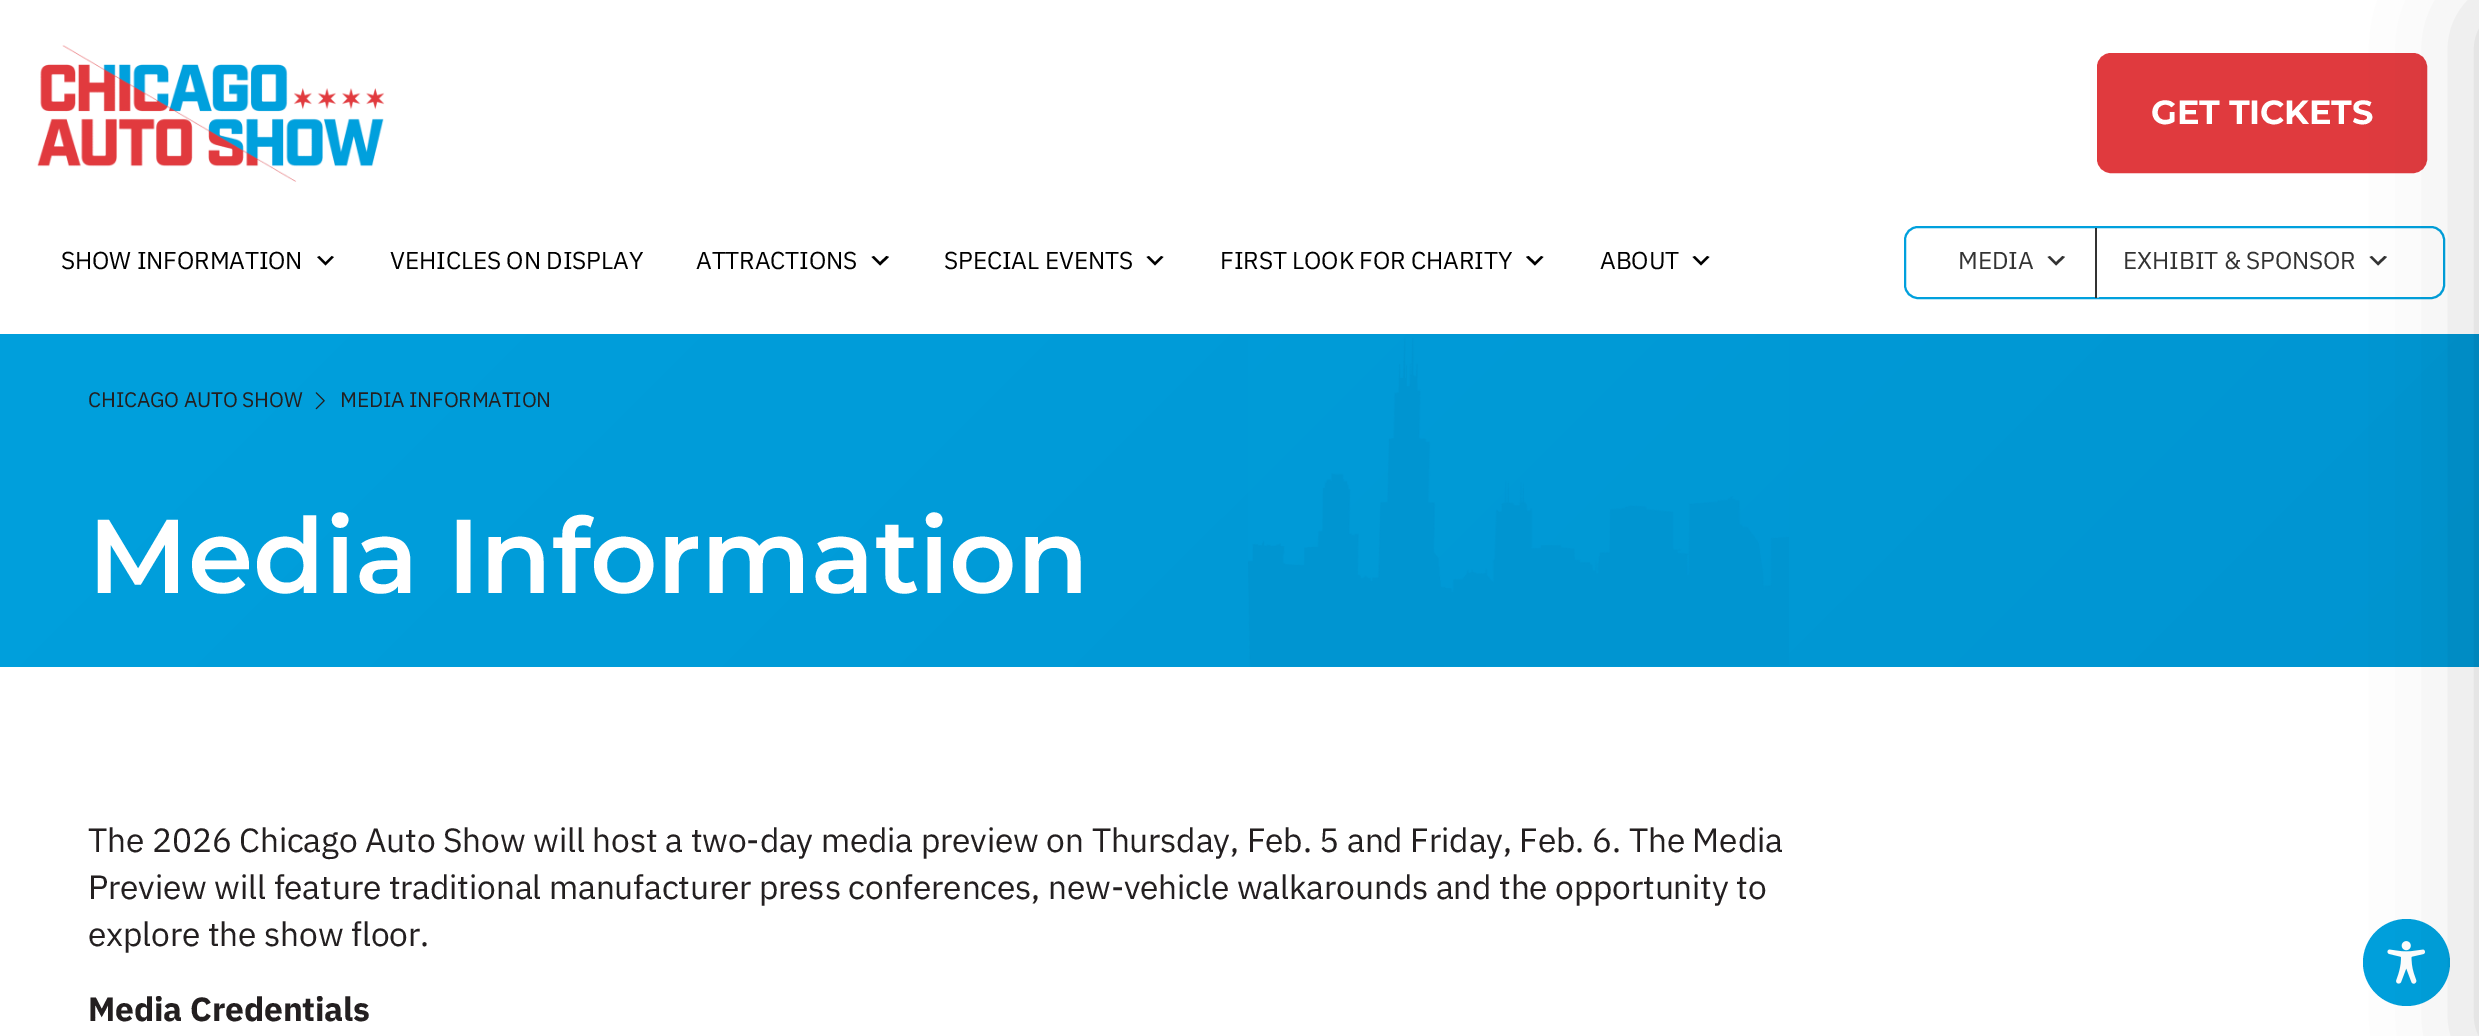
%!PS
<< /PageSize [2479 1036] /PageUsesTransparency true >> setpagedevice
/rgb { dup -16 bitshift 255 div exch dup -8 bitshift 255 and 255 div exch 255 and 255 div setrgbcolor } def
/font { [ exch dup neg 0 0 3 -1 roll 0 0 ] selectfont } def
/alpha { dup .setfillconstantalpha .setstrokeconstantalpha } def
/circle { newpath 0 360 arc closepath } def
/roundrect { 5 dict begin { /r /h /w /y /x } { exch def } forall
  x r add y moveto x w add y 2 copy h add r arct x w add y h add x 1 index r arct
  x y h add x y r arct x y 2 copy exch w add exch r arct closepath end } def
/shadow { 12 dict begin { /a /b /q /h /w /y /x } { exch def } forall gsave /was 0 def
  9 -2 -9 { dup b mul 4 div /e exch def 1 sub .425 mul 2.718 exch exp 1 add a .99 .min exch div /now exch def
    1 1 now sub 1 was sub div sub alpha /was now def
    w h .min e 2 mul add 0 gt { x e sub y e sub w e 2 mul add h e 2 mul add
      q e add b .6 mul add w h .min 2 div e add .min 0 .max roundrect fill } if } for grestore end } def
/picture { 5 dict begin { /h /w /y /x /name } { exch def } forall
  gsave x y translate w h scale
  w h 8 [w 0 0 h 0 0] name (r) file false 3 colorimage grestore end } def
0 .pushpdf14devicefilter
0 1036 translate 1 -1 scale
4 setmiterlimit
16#FFFFFF rgb
0 0 2479 1036 rectfill
(pic1.raw) 37 45 348 137 picture
16#E03A3E rgb
2098 54 328 118 13 roundrect gsave fill grestore
2 setlinewidth
stroke
/Montserrat-Bold 33.5 font
16#FFFFFF rgb
2151 124 moveto -0.18 0 (GET TICKETS) ashow
/IBMPlexSans-Regular 24.5 font
16#000000 rgb
61 269 moveto -0.18 0 (SHOW INFORMATION) ashow
(pic2.raw) 317 255 17 11 picture
390 269 moveto -0.18 0 (VEHICLES ON DISPLAY) ashow
696 269 moveto -0.18 0 (ATTRACTIONS) ashow
874 256 moveto 880 262 lineto 886.5 256 lineto 889 257 lineto 880 265.5 lineto 871.5 257 lineto closepath fill
944 269 moveto -0.18 0 (SPECIAL EVENTS) ashow
1149 256 moveto 1155 262 lineto 1161 256 lineto 1163.5 257 lineto 1155 265.5 lineto 1146.5 257 lineto closepath fill
1220 269 moveto -0.18 0 (FIRST LOOK FOR CHARITY) ashow
1528.5 256 moveto 1535 262 lineto 1541 256 lineto 1543.5 257 lineto 1535 265.5 lineto 1526 257 lineto closepath fill
1600 269 moveto -0.18 0 (ABOUT) ashow
1695 256 moveto 1701 262 lineto 1707 256 lineto 1709.5 257 lineto 1701 265.5 lineto 1692.5 257 lineto closepath fill
16#00A0DD rgb
1905 227 539 71 13 roundrect stroke
16#333333 rgb
1958 269 moveto -0.18 0 (MEDIA) ashow
2050 256 moveto 2056 262 lineto 2062.5 256 lineto 2065 257 lineto 2056 265.5 lineto 2047.5 257 lineto closepath fill
0.5 alpha
16#FFFFFF rgb
2097 297 2 1 rectfill
1 alpha
16#333333 rgb
2095 228 2 70 rectfill
2123 269 moveto -0.18 0 (EXHIBIT & SPONSOR) ashow
2372 256 moveto 2378 262 lineto 2384.5 256 lineto 2387 257 lineto 2378 265.5 lineto 2369.5 257 lineto closepath fill
gsave 0 334 moveto 2479 334 lineto 2479 667 lineto 0 667 lineto closepath clip newpath
<< /ShadingType 2 /ColorSpace /DeviceRGB /Coords [537 -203 1943 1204] /Extend [true true] /Function << /FunctionType 2 /Domain [0 1] /C0 [0 0.627 0.867] /C1 [0 0.584 0.82] /N 1 >> >> shfill grestore
(pic3.raw) 1248 338 541 329 picture
/IBMPlexSans-Regular 21 font
16#231F20 rgb
88 407 moveto -0.18 0 (CHICAGO AUTO SHOW) ashow
(pic4.raw) 315 392 10 18 picture
340 407 moveto -0.18 0 (MEDIA INFORMATION) ashow
/Montserrat-SemiBold 104.75 font
16#FFFFFF rgb
88 593 moveto -0.18 0 (Media Information) ashow
/IBMPlexSans-Regular 33.5 font
16#231F20 rgb
88 852 moveto -0.18 0 (The 2026 Chicago Auto Show will host a two-day media preview on Thursday, Feb. 5 and Friday, Feb. 6. The Media) ashow
88 899 moveto -0.1 0 32 -0.18 0 (Preview will feature traditional manufacturer press conferences, new-vehicle walkarounds and the opportunity to) awidthshow
88 946 moveto -0.18 0 (explore the show floor.) ashow
/IBMPlexSans-Bold 33.5 font
88 1021 moveto -0.18 0 (Media Credentials) ashow
16#00A0DD rgb
2406.5 962.5 43.5 circle fill
(pic5.raw) 2387 941 38 43 picture
16#000000 rgb
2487 18 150 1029 0 52.5 0.2 shadow
.poppdf14devicefilter showpage
